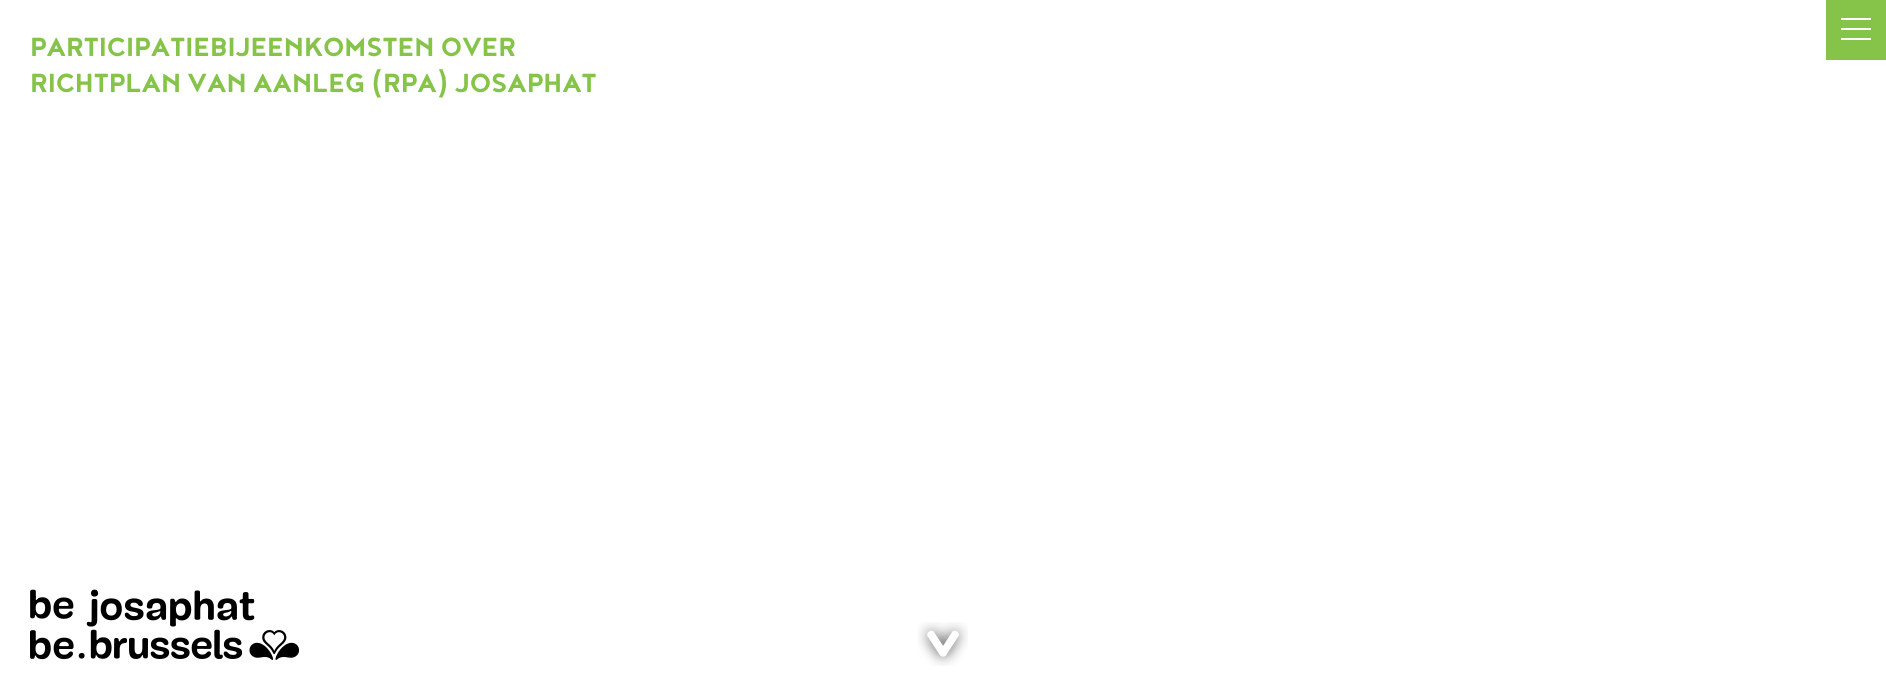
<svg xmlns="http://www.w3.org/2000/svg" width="1886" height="690">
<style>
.a{font:32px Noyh;fill:#85c449}
</style>
<rect width="100%" height="100%" fill="#fff"/>
<path fill="#85c449" d="M1826 0h60v60H1826z"/>
<path fill="#fff" d="M1841 28h30v2H1841z"/>
<path fill="#fff" d="M1841 18h30v2H1841z"/>
<path fill="#fff" d="M1841 38h30v2H1841z"/>
<image href="1.png" x="30" y="589" width="269" height="71"/>
<image href="2.png" x="918" y="622" width="50" height="44"/>
<text class="a" x="30" y="56">PARTICIPATIEBIJEENKOMSTEN OVER</text>
<text class="a" x="30" y="92">RICHTPLAN VAN AANLEG (RPA) JOSAPHAT</text>
</svg>
